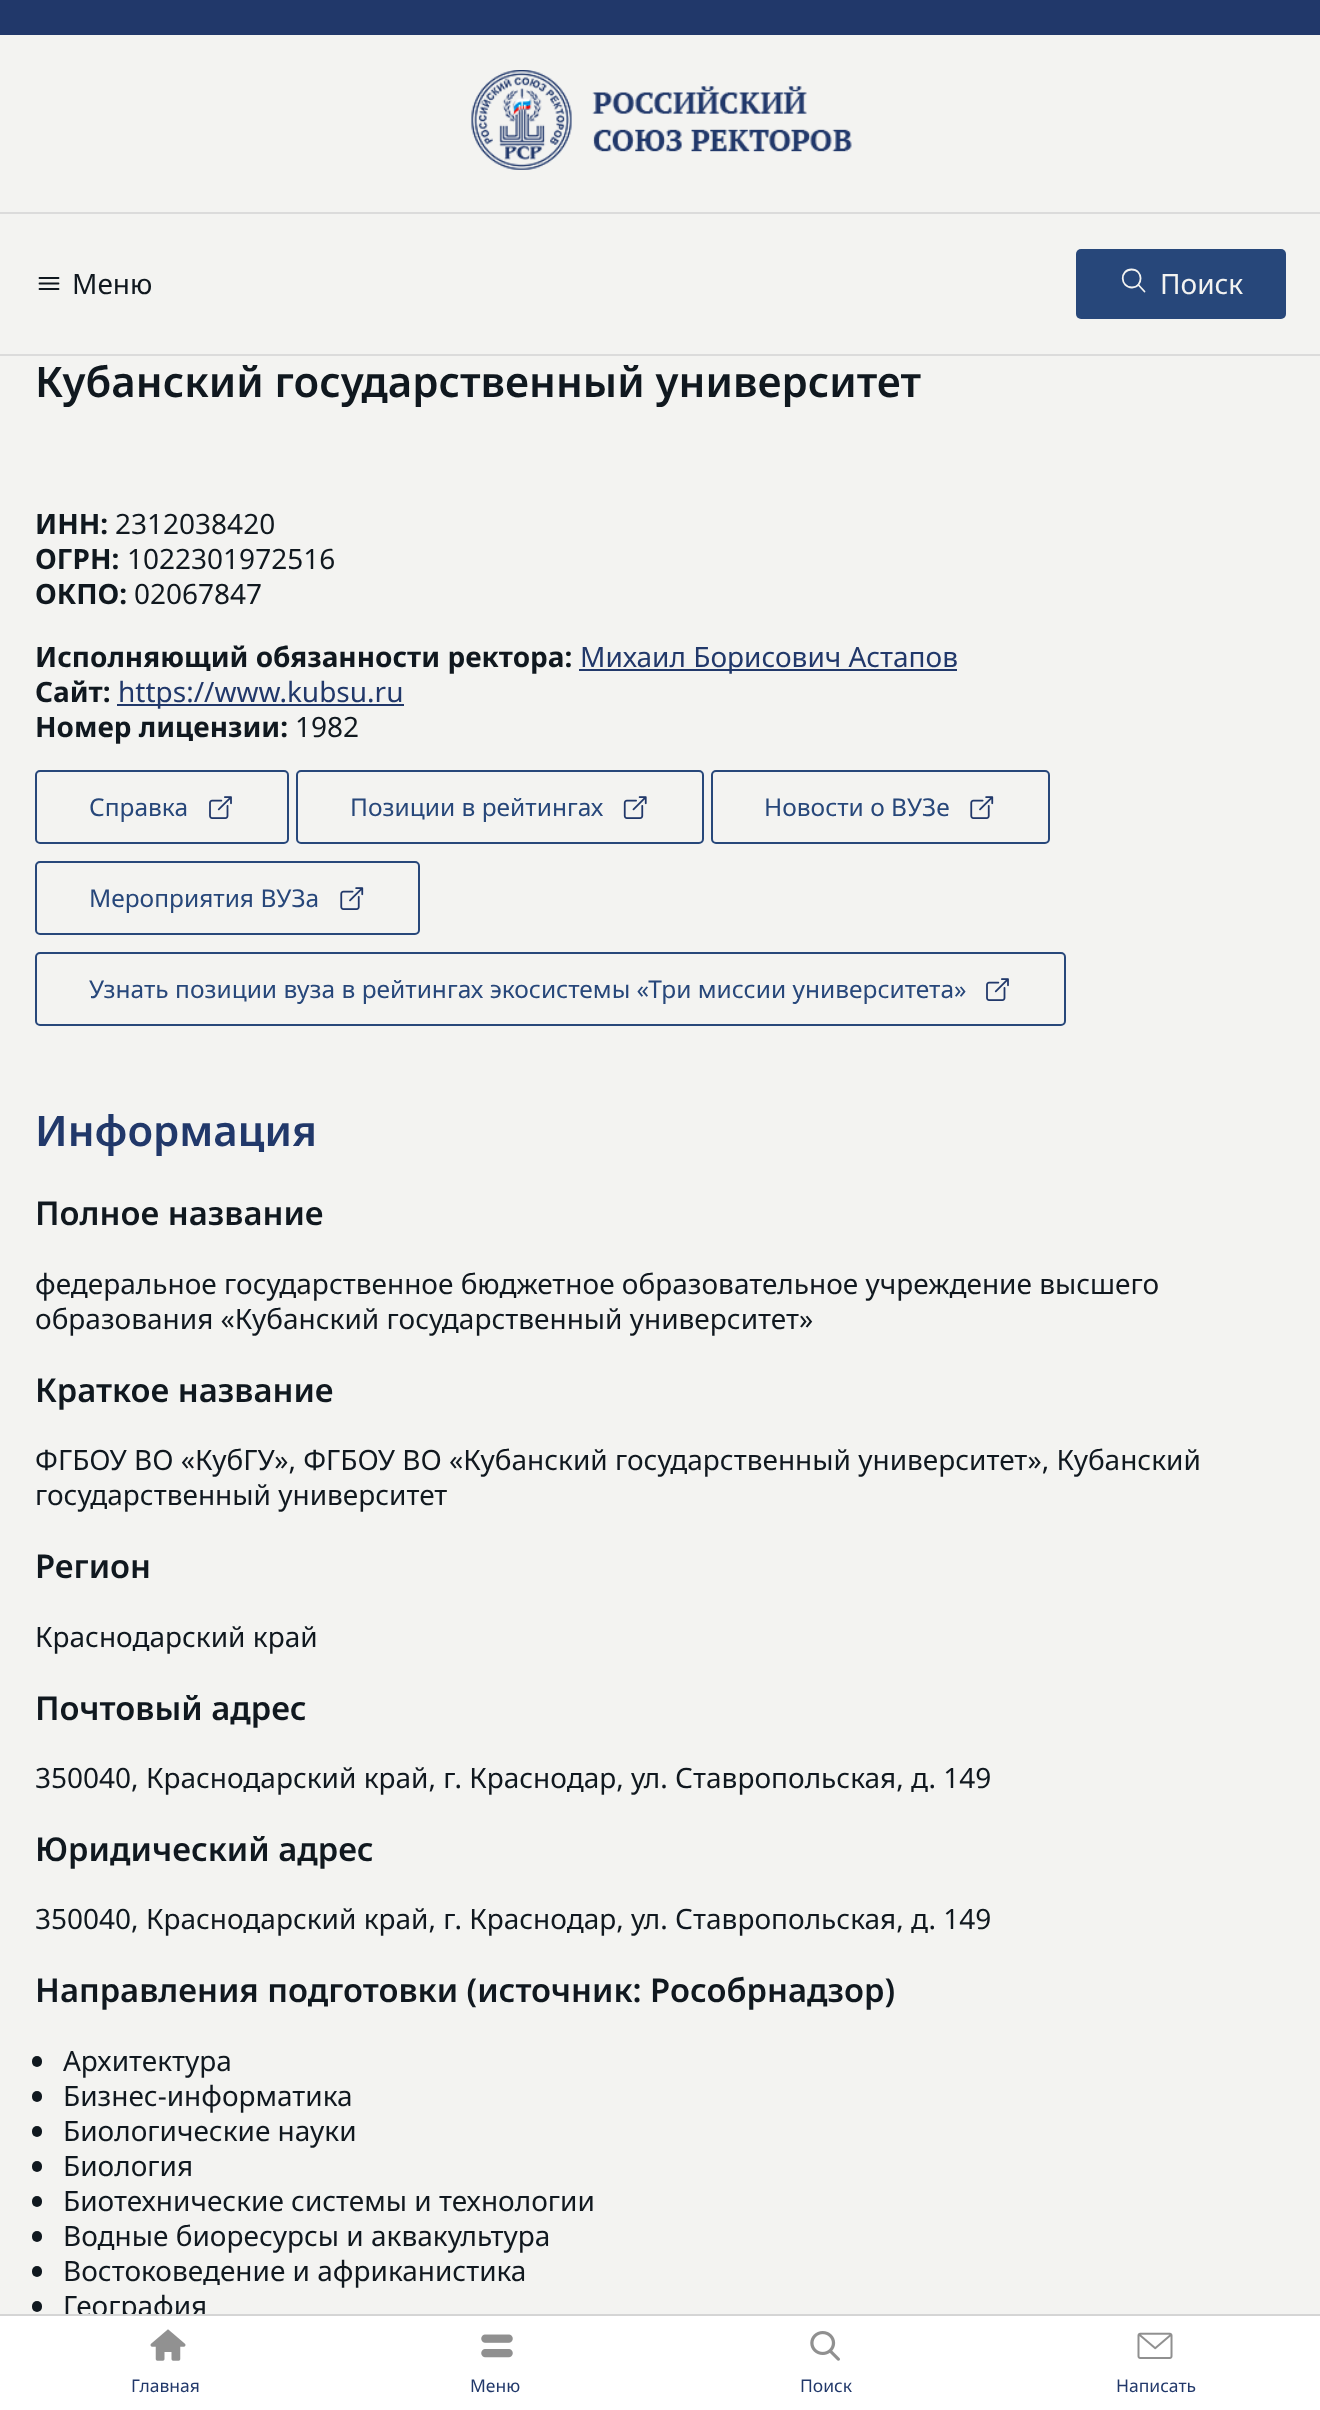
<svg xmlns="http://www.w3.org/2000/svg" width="1320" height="2410">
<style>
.a{font:28px Noto Sans;fill:#10181f}
.b{font:28px Noto Sans;fill:#f3f3f1}
.c{font:600 42px Noto Sans;fill:#10181f}
.d{font:bold 28px Noto Sans;fill:#10181f}
.e{font:28px Noto Sans;fill:#21386a}
.f{font:24.5px Noto Sans;fill:#27477a}
.g{font:600 42px Noto Sans;fill:#21386a}
.h{font:600 32.75px Noto Sans;fill:#10181f}
.i{font:17.5px Noto Sans;fill:#21386a}
</style>
<rect width="100%" height="100%" fill="#f3f3f1"/>
<path fill="#21386a" d="M0 0h1320v35H0z"/>
<image href="1.png" x="471" y="70" width="381" height="100"/>
<path fill="#dbdbdb" d="M0 212h1320v2H0z"/>
<path fill="#dbdbdb" d="M0 354h1320v2H0z"/>
<path fill="none" stroke="#10181f" stroke-width="1.8" stroke-linecap="round" d="M39.5 278h19m-19 5.5h19m-19 5.5h19"/>
<rect fill="#27477a" x="1076" y="249" width="210" height="70" rx="5"/>
<path fill="none" stroke="#f3f3f1" stroke-width="1.8" d="M1131.5 269.5c-12 0-11.5 18 .5 18c11.5-.5 11.5-18-.5-18z"/>
<path fill="none" stroke="#f3f3f1" stroke-width="1.8" stroke-linecap="round" d="M1138.5 285l6 6.5"/>
<path fill="#21386a" d="M579 669h378v2H579z"/>
<path fill="#21386a" d="M117 704h287v2H117z"/>
<rect fill="none" stroke="#27477a" stroke-width="2" x="36" y="771" width="252" height="72" rx="4"/>
<image href="2.png" x="209" y="796" width="23" height="23"/>
<rect fill="none" stroke="#27477a" stroke-width="2" x="297" y="771" width="406" height="72" rx="4"/>
<image href="3.png" x="623" y="796" width="24" height="23"/>
<rect fill="none" stroke="#27477a" stroke-width="2" x="712" y="771" width="337" height="72" rx="4"/>
<image href="4.png" x="970" y="796" width="24" height="23"/>
<rect fill="none" stroke="#27477a" stroke-width="2" x="36" y="862" width="383" height="72" rx="4"/>
<image href="4.png" x="340" y="887" width="24" height="23"/>
<rect fill="none" stroke="#27477a" stroke-width="2" x="36" y="953" width="1029" height="72" rx="4"/>
<image href="2.png" x="986" y="978" width="23" height="23"/>
<rect fill="#10181f" x="32" y="2056" width="10" height="11" rx="5"/>
<rect fill="#10181f" x="32" y="2091" width="10" height="11" rx="5"/>
<rect fill="#10181f" x="32" y="2126" width="10" height="11" rx="5"/>
<rect fill="#10181f" x="32" y="2161" width="10" height="11" rx="5"/>
<rect fill="#10181f" x="32" y="2196" width="10" height="11" rx="5"/>
<rect fill="#10181f" x="32" y="2231" width="10" height="11" rx="5"/>
<rect fill="#10181f" x="32" y="2266" width="10" height="11" rx="5"/>
<rect fill="#10181f" x="32" y="2301" width="10" height="11" rx="5"/>
<text class="a" x="72" y="294">Меню</text>
<text class="b" x="1160" y="294">Поиск</text>
<text class="c" x="35" y="397">Кубанский государственный университет</text>
<text class="d" x="35" y="534">ИНН:</text>
<text class="a" x="115" y="534">2312038420</text>
<text class="d" x="35" y="569">ОГРН:</text>
<text class="a" x="127" y="569">1022301972516</text>
<text class="d" x="35" y="604">ОКПО:</text>
<text class="a" x="134" y="604">02067847</text>
<text class="d" x="35" y="667">Исполняющий обязанности ректора:</text>
<text class="e" x="580" y="667">Михаил Борисович Астапов</text>
<text class="d" x="35" y="702">Сайт:</text>
<text class="e" x="118" y="702">https://www.kubsu.ru</text>
<text class="d" x="35" y="737">Номер лицензии:</text>
<text class="a" x="295" y="737">1982</text>
<text class="f" x="89" y="816">Справка</text>
<text class="f" x="350" y="816">Позиции в рейтингах</text>
<text class="f" x="764" y="816">Новости о ВУЗе</text>
<text class="f" x="89" y="907">Мероприятия ВУЗа</text>
<text class="f" x="89" y="998">Узнать позиции вуза в рейтингах экосистемы «Три миссии университета»</text>
<text class="g" x="35" y="1146">Информация</text>
<text class="h" x="35" y="1225">Полное название</text>
<text class="a" x="35" y="1294">федеральное государственное бюджетное образовательное учреждение высшего</text>
<text class="a" x="35" y="1329">образования «Кубанский государственный университет»</text>
<text class="h" x="35" y="1402">Краткое название</text>
<text class="a" x="35" y="1470">ФГБОУ ВО «КубГУ», ФГБОУ ВО «Кубанский государственный университет», Кубанский</text>
<text class="a" x="35" y="1505">государственный университет</text>
<text class="h" x="35" y="1578">Регион</text>
<text class="a" x="35" y="1647">Краснодарский край</text>
<text class="h" x="35" y="1720">Почтовый адрес</text>
<text class="a" x="35" y="1788">350040, Краснодарский край, г. Краснодар, ул. Ставропольская, д. 149</text>
<text class="h" x="35" y="1861">Юридический адрес</text>
<text class="a" x="35" y="1929">350040, Краснодарский край, г. Краснодар, ул. Ставропольская, д. 149</text>
<text class="h" x="35" y="2002">Направления подготовки (источник: Рособрнадзор)</text>
<text class="a" x="63" y="2071">Архитектура</text>
<text class="a" x="63" y="2106">Бизнес-информатика</text>
<text class="a" x="63" y="2141">Биологические науки</text>
<text class="a" x="63" y="2176">Биология</text>
<text class="a" x="63" y="2211">Биотехнические системы и технологии</text>
<text class="a" x="63" y="2246">Водные биоресурсы и аквакультура</text>
<text class="a" x="63" y="2281">Востоковедение и африканистика</text>
<text class="a" x="63" y="2316">География</text>
<path fill="#fff" d="M0 2316h1320v94H0z"/>
<path fill="#d5d5d5" d="M0 2314h1320v2H0z"/>
<image href="5.png" x="150" y="2329" width="36" height="32"/>
<text class="i" x="131" y="2392">Главная</text>
<image href="6.png" x="481" y="2334" width="32" height="24"/>
<text class="i" x="470" y="2392">Меню</text>
<image href="7.png" x="810" y="2331" width="30" height="30"/>
<text class="i" x="800" y="2392">Поиск</text>
<image href="8.png" x="1137" y="2332" width="36" height="27"/>
<text class="i" x="1116" y="2392">Написать</text>
</svg>
